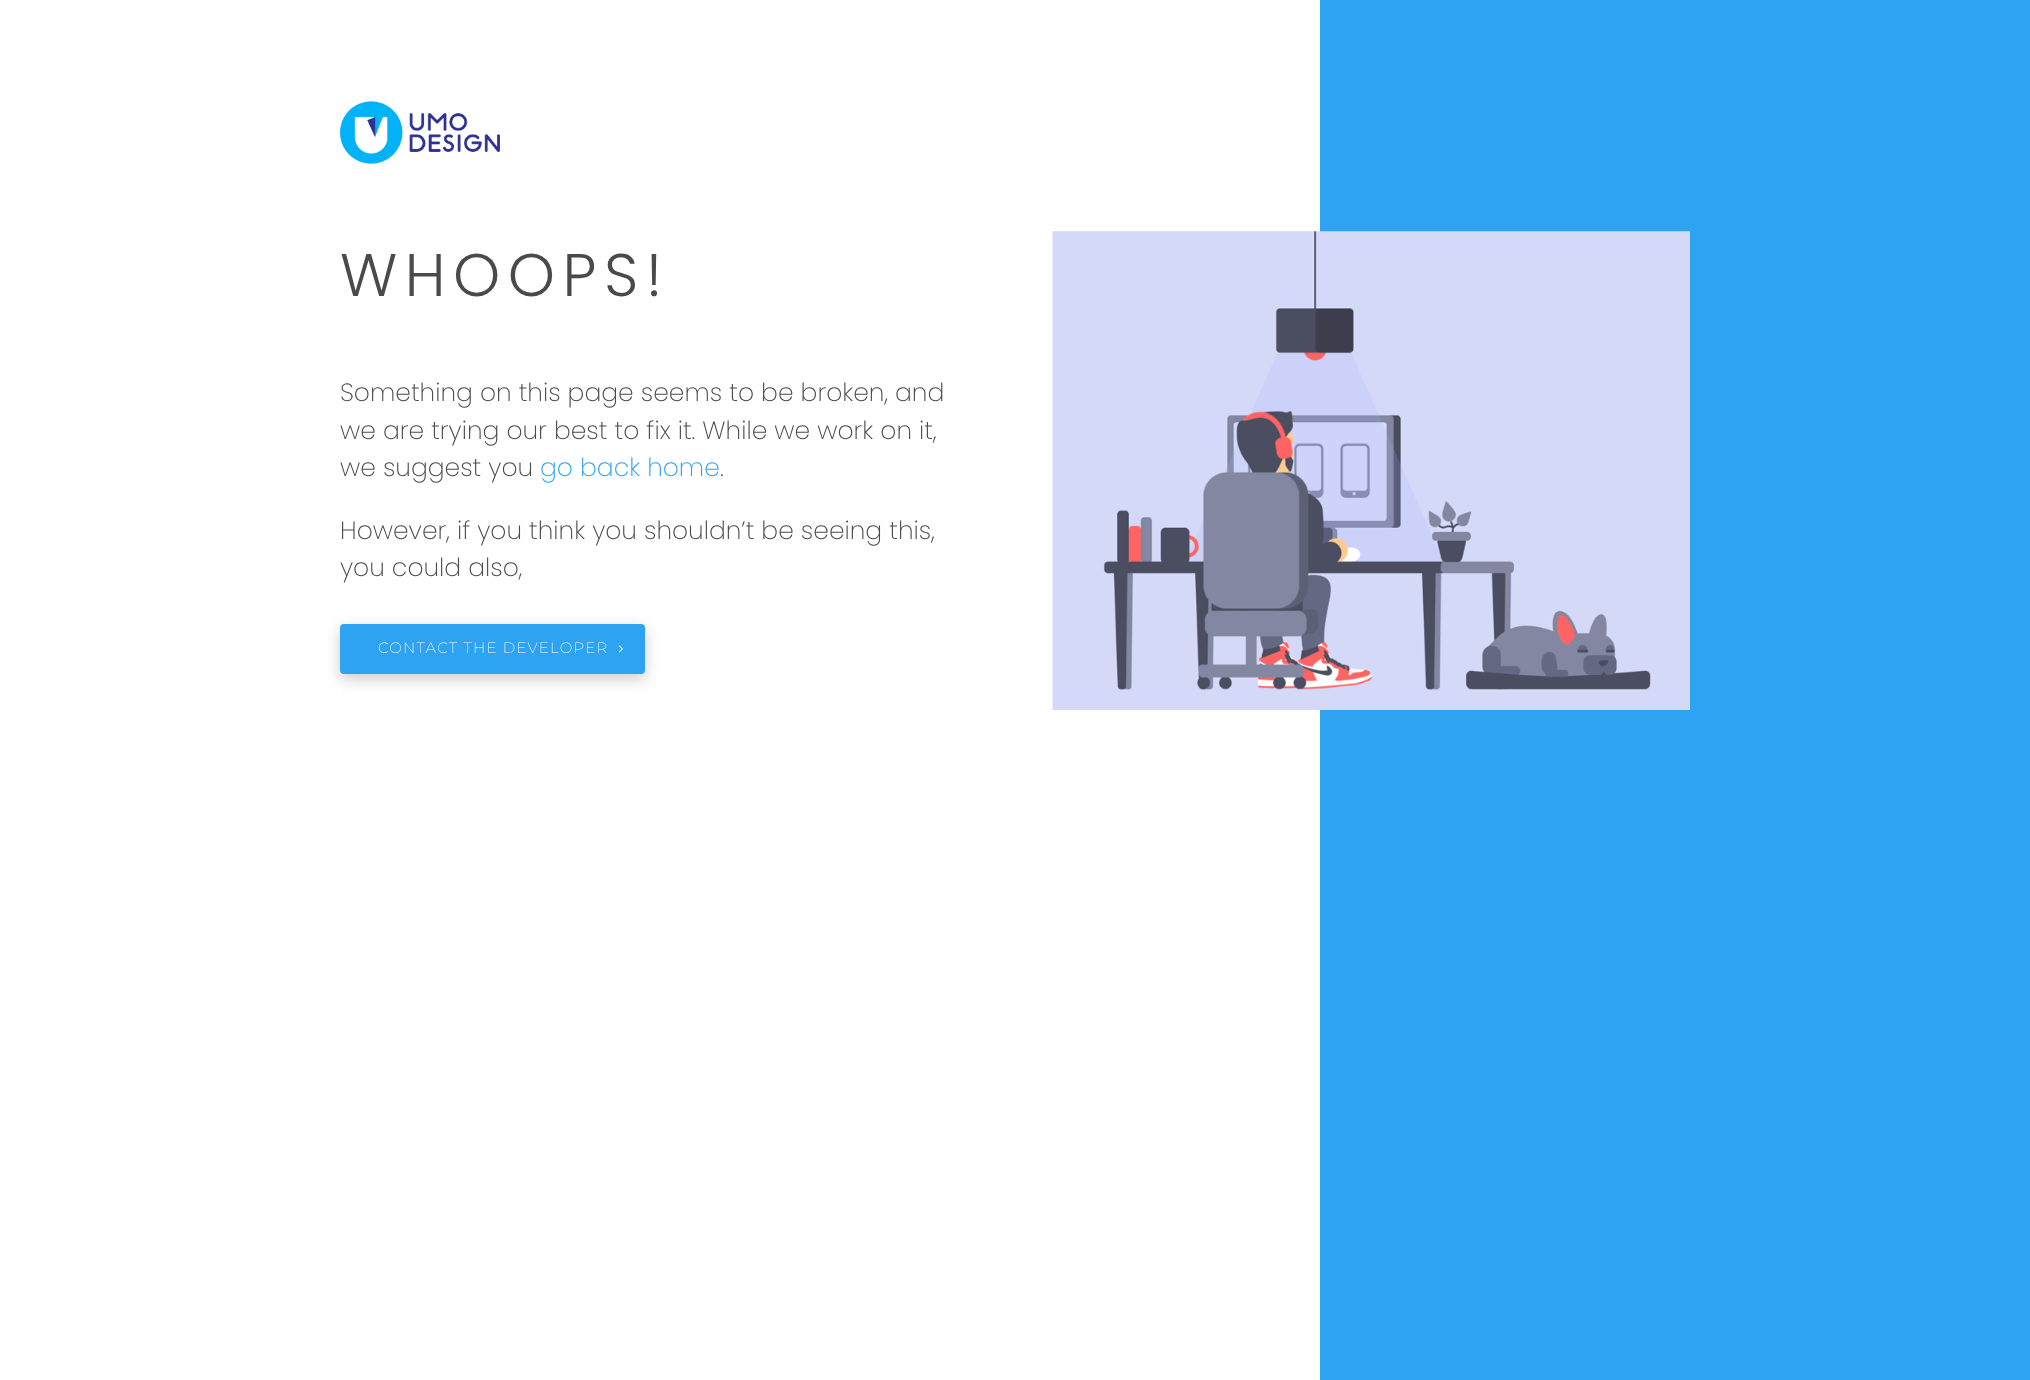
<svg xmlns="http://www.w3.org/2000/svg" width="2030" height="1380">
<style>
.a{font:300 60px Poppins;letter-spacing:7.5px;fill:#4a4a4a}
.b{font:200 25px Poppins;fill:#4a4a4a}
.c{font:200 25px Poppins;fill:#2ea3f2}
.d{font:200 15px Montserrat;letter-spacing:1.25px;fill:#fff}
</style>
<rect width="100%" height="100%" fill="#fff"/>
<path fill="#2ea3f2" d="M1320 0h710v1380H1320z"/>
<image href="1.png" x="340" y="101" width="160" height="63"/>
<rect fill="#00000033" filter="blur(7.5px)" x="340" y="629" width="305" height="50" rx="4"/>
<rect fill="#2ea3f2" x="340" y="624" width="305" height="50" rx="4"/>
<image href="2.png" x="618" y="645" width="5" height="8"/>
<image href="3.png" x="1052" y="231" width="638" height="479"/>
<text class="a" x="340" y="296">WHOOPS!</text>
<text class="b" x="340" y="401">Something on this page seems to be broken, and</text>
<text class="b" x="340" y="439">we are trying our best to fix it. While we work on it,</text>
<text class="b" x="340" y="476">we suggest you</text>
<text class="c" x="540" y="476">go back home</text>
<text class="b" x="720" y="476">.</text>
<text class="b" x="340" y="539">However, if you think you shouldn’t be seeing this,</text>
<text class="b" x="340" y="576">you could also,</text>
<text class="d" x="378" y="653">CONTACT THE DEVELOPER</text>
</svg>
